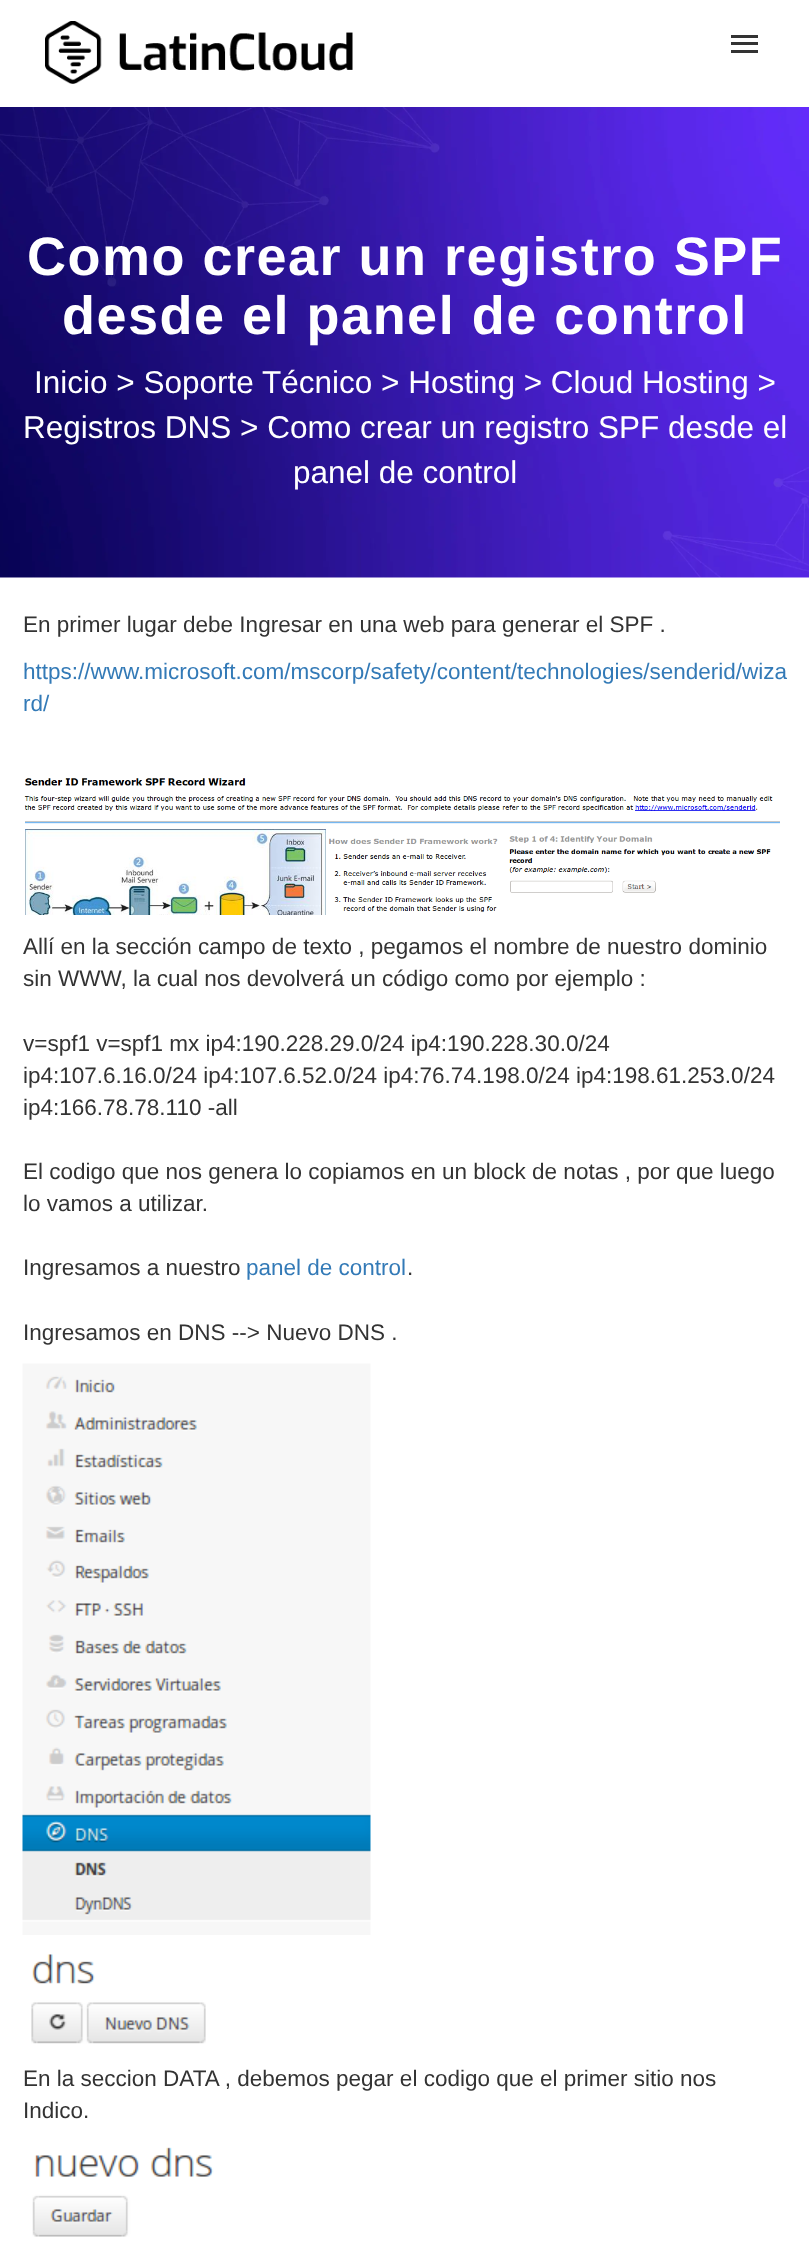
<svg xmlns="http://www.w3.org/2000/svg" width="809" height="2248">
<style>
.a{font:bold 54px Liberation Sans;letter-spacing:1.5px;fill:#fff}
.b{font:31.5px Liberation Sans;fill:#fff}
.c{font:22.5px Liberation Sans;fill:#333}
.d{font:22.5px Liberation Sans;fill:#337ab7}
</style>
<rect width="100%" height="100%" fill="#fff"/>
<image href="1.png" x="45" y="21" width="308" height="63"/>
<path fill="#333" d="M731 42h27v3H731z"/>
<path fill="#333" d="M731 35h27v3H731z"/>
<path fill="#333" d="M731 50h27v3H731z"/>
<image href="2.png" x="0" y="107" width="809" height="471"/>
<image href="3.png" x="24" y="778" width="756" height="137"/>
<image href="4.png" x="22" y="1363" width="349" height="572"/>
<image href="5.png" x="31" y="1954" width="175" height="90"/>
<image href="6.png" x="32" y="2147" width="182" height="90"/>
<text class="a" x="27" y="275">Como crear un registro SPF</text>
<text class="a" x="62" y="334">desde el panel de control</text>
<text class="b" x="34" y="393">Inicio &gt; Soporte Técnico &gt; Hosting &gt; Cloud Hosting &gt;</text>
<text class="b" x="23" y="438">Registros DNS &gt; Como crear un registro SPF desde el</text>
<text class="b" x="293" y="483">panel de control</text>
<text class="c" x="23" y="632">En primer lugar debe Ingresar en una web para generar el SPF .</text>
<text class="d" x="23" y="679">https://www.microsoft.com/mscorp/safety/content/technologies/senderid/wiza</text>
<text class="d" x="23" y="711">rd/</text>
<text class="c" x="23" y="954">Allí en la sección campo de texto , pegamos el nombre de nuestro dominio</text>
<text class="c" x="23" y="986">sin WWW, la cual nos devolverá un código como por ejemplo :</text>
<text class="c" x="23" y="1051">v=spf1 v=spf1 mx ip4:190.228.29.0/24 ip4:190.228.30.0/24</text>
<text class="c" x="23" y="1083">ip4:107.6.16.0/24 ip4:107.6.52.0/24 ip4:76.74.198.0/24 ip4:198.61.253.0/24</text>
<text class="c" x="23" y="1115">ip4:166.78.78.110 -all</text>
<text class="c" x="23" y="1179">El codigo que nos genera lo copiamos en un block de notas , por que luego</text>
<text class="c" x="23" y="1211">lo vamos a utilizar.</text>
<text class="c" x="23" y="1275">Ingresamos a nuestro</text>
<text class="d" x="246" y="1275">panel de control</text>
<text class="c" x="407" y="1275">.</text>
<text class="c" x="23" y="1340">Ingresamos en DNS --&gt; Nuevo DNS .</text>
<text class="c" x="23" y="2086">En la seccion DATA , debemos pegar el codigo que el primer sitio nos</text>
<text class="c" x="23" y="2118">Indico.</text>
</svg>
